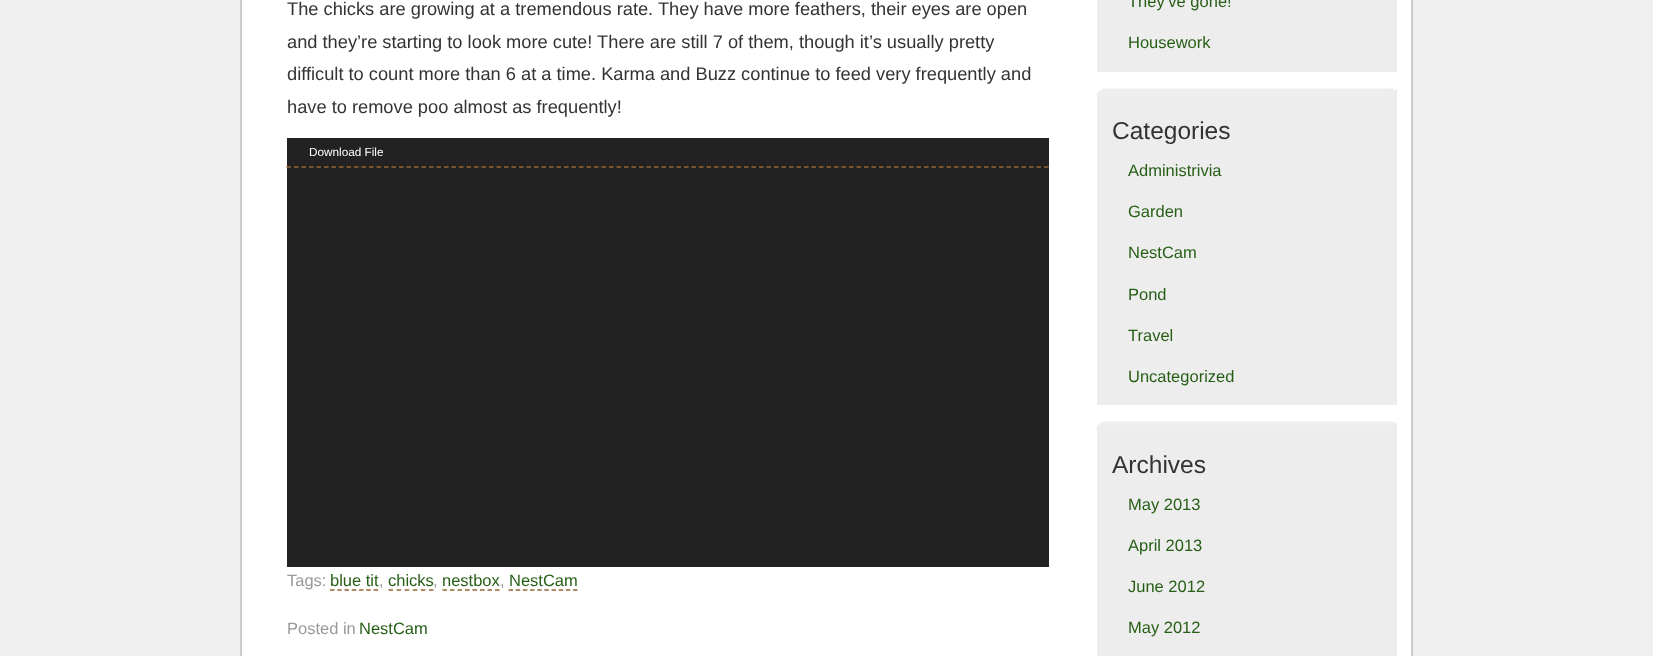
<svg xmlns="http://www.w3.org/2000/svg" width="1653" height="656">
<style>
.a{font:18.25px Liberation Sans;fill:#333}
.b{font:11.75px Liberation Sans;fill:#fff}
.c{font:16.5px Liberation Sans;fill:#999}
.d{font:16.5px Liberation Sans;fill:#265e15}
.e{font:24.5px Liberation Sans;fill:#333}
</style>
<rect width="100%" height="100%" fill="#f0f0f0"/>
<path fill="#fff" stroke="#ccc" stroke-width="2" d="M241 -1h1171v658H241z"/>
<path fill="#222" d="M287 138h762v429H287z"/>
<path fill="none" stroke="#963" stroke-width="1.5" stroke-dasharray="4.5 3" d="M286.5 167h762"/>
<path fill="none" stroke="#963" stroke-width="1.5" stroke-dasharray="4.5 2.75" d="M330 590h48"/>
<path fill="none" stroke="#963" stroke-width="1.5" stroke-dasharray="4.5 3.6" d="M388.5 590h45"/>
<path fill="none" stroke="#963" stroke-width="1.5" stroke-dasharray="4.5 3" d="M442.5 590h57"/>
<path fill="none" stroke="#963" stroke-width="1.5" stroke-dasharray="4.5 2.67" d="M508.5 590h69"/>
<path fill="#ededed" d="M1097 0h300v72H1097z"/>
<path fill="#ededed" d="M1097 89h300v316H1097z"/>
<image href="1.png" x="1096" y="88" width="300" height="8"/>
<path fill="#ededed" d="M1097 422h300v234H1097z"/>
<image href="1.png" x="1096" y="421" width="300" height="8"/>
<text class="a" x="287" y="15">The chicks are growing at a tremendous rate. They have more feathers, their eyes are open</text>
<text class="a" x="287" y="48">and they’re starting to look more cute! There are still 7 of them, though it’s usually pretty</text>
<text class="a" x="287" y="80">difficult to count more than 6 at a time. Karma and Buzz continue to feed very frequently and</text>
<text class="a" x="287" y="113">have to remove poo almost as frequently!</text>
<text class="b" x="309" y="156">Download File</text>
<text class="c" x="287" y="586">Tags:</text>
<text class="d" x="330" y="586">blue tit</text>
<text class="c" x="379" y="586">,</text>
<text class="d" x="388" y="586">chicks</text>
<text class="c" x="433" y="586">,</text>
<text class="d" x="442" y="586">nestbox</text>
<text class="c" x="500" y="586">,</text>
<text class="d" x="509" y="586">NestCam</text>
<text class="c" x="287" y="634">Posted in</text>
<text class="d" x="359" y="634">NestCam</text>
<text class="d" x="1128" y="7">They’ve gone!</text>
<text class="d" x="1128" y="48">Housework</text>
<text class="e" x="1112" y="139">Categories</text>
<text class="d" x="1128" y="176">Administrivia</text>
<text class="d" x="1128" y="217">Garden</text>
<text class="d" x="1128" y="258">NestCam</text>
<text class="d" x="1128" y="300">Pond</text>
<text class="d" x="1128" y="341">Travel</text>
<text class="d" x="1128" y="382">Uncategorized</text>
<text class="e" x="1112" y="473">Archives</text>
<text class="d" x="1128" y="510">May 2013</text>
<text class="d" x="1128" y="551">April 2013</text>
<text class="d" x="1128" y="592">June 2012</text>
<text class="d" x="1128" y="633">May 2012</text>
</svg>
